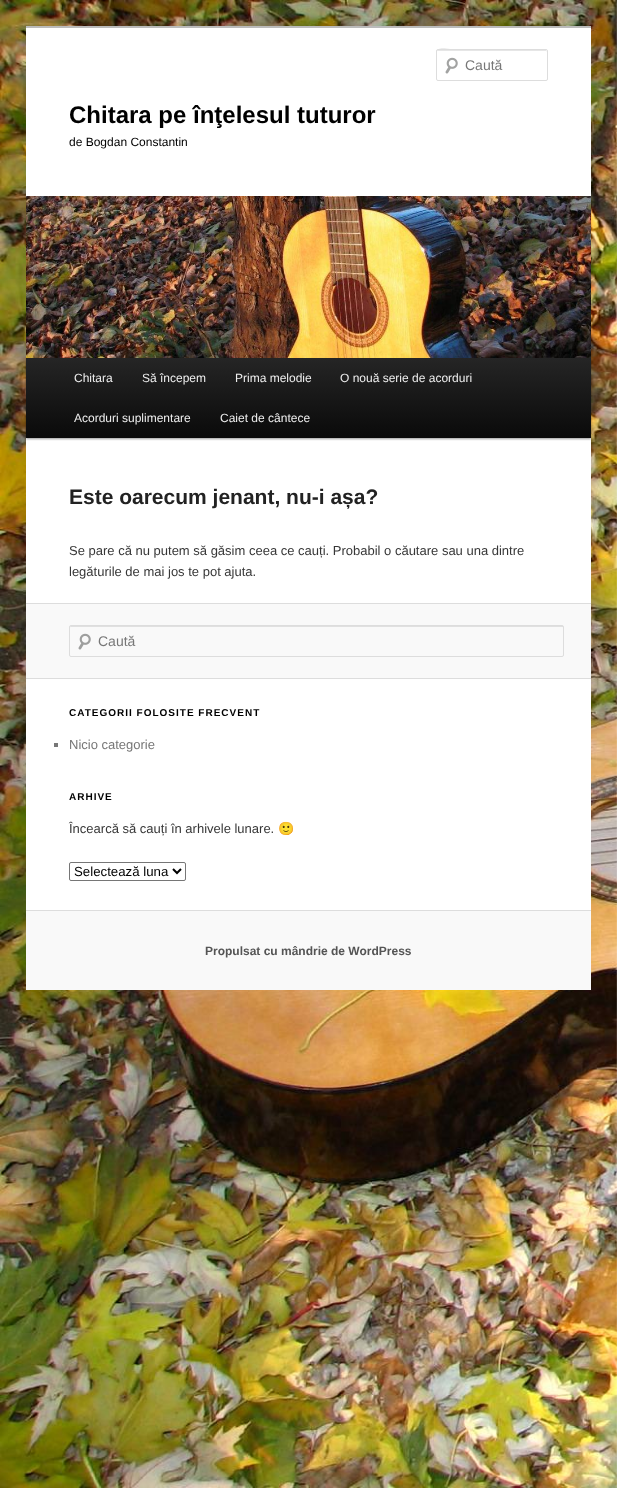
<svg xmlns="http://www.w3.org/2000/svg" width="617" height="1488">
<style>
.a{font:14px Liberation Sans;fill:#777}
.b{font:bold 24px Liberation Sans;fill:#000}
.c{font:12px Liberation Sans;fill:#000}
.d{font:12px Liberation Sans;fill:#eee}
.e{font:bold 21px Liberation Sans;fill:#222}
.f{font:13px Liberation Sans;fill:#373737}
.g{font:bold 10px Liberation Sans;letter-spacing:1px;fill:#000}
.h{font:13px Liberation Sans;fill:#777}
.i{font:13px Noto Color Emoji;fill:#373737}
.j{font:13.25px Liberation Sans;fill:#000}
.k{font:bold 12px Liberation Sans;fill:#555}
</style>
<defs>
<linearGradient id="g1" gradientUnits="userSpaceOnUse" x1="309" y1="358" x2="309" y2="438"><stop offset="0" stop-color="#252525"/><stop offset="1" stop-color="#0a0a0a"/></linearGradient>
</defs>
<rect width="100%" height="100%" fill="#fff"/>
<image href="1.png" x="0" y="0" width="617" height="1488"/>
<path fill="#fff" d="M26 28h565v882H26z"/>
<path fill="#bbb" d="M26 26h565v2H26z"/>
<image href="2.png" x="445" y="57" width="13" height="17"/>
<path fill="#e6e6e6" d="M438 51h109v1l-1-2h-90c-4 0-19-5-19 2c0-1 0-1 1-1z"/>
<rect fill="none" stroke="#ddd" x="436.5" y="49.5" width="111" height="31" rx="1.5"/>
<path fill="#00000066" filter="blur(1px)" d="M26 359h565v80H26z"/>
<image href="3.png" x="26" y="196" width="565" height="162"/>
<path fill="url(#g1)" d="M26 358h565v80H26z"/>
<path fill="#f9f9f9" d="M26 604h565v74H26z"/>
<path fill="#ddd" d="M26 603h565v1H26z"/>
<path fill="#ddd" d="M26 678h565v1H26z"/>
<image href="4.png" x="78" y="633" width="13" height="17"/>
<path fill="#e0e0e0" d="M71 627h491c1 0 1 0 1 1v-2h-492c-1 0-1 1-1 2c0-1 0-1 1-1z"/>
<rect fill="none" stroke="#ddd" x="69.5" y="625.5" width="494" height="31" rx="1.5"/>
<path fill="#777" d="M54 743h4v4H54z"/>
<rect fill="none" stroke="#767676" x="69.5" y="862.5" width="116" height="18" rx="1.5"/>
<path fill="none" stroke="#000" stroke-width="2" d="M173 869l4 4l4-4"/>
<path fill="#f9f9f9" d="M26 911h565v79H26z"/>
<path fill="#ddd" d="M26 910h565v1H26z"/>
<text class="a" x="465" y="70">Caută</text>
<text class="b" x="69" y="123">Chitara pe înţelesul tuturor</text>
<text class="c" x="69" y="146">de Bogdan Constantin</text>
<text class="d" x="74" y="382">Chitara</text>
<text class="d" x="142" y="382">Să începem</text>
<text class="d" x="235" y="382">Prima melodie</text>
<text class="d" x="340" y="382">O nouă serie de acorduri</text>
<text class="d" x="74" y="422">Acorduri suplimentare</text>
<text class="d" x="220" y="422">Caiet de cântece</text>
<text class="e" x="69" y="504">Este oarecum jenant, nu-i așa?</text>
<text class="f" x="69" y="555">Se pare că nu putem să găsim ceea ce cauți. Probabil o căutare sau una dintre</text>
<text class="f" x="69" y="576">legăturile de mai jos te pot ajuta.</text>
<text class="a" x="98" y="646">Caută</text>
<text class="g" x="69" y="716">CATEGORII FOLOSITE FRECVENT</text>
<text class="h" x="69" y="749">Nicio categorie</text>
<text class="g" x="69" y="800">ARHIVE</text>
<text class="f" x="69" y="833">Încearcă să cauți în arhivele lunare.</text>
<text class="i" x="278" y="833">🙂</text>
<text class="j" x="74" y="876">Selectează luna</text>
<text class="k" x="205" y="955">Propulsat cu mândrie de WordPress</text>
</svg>
